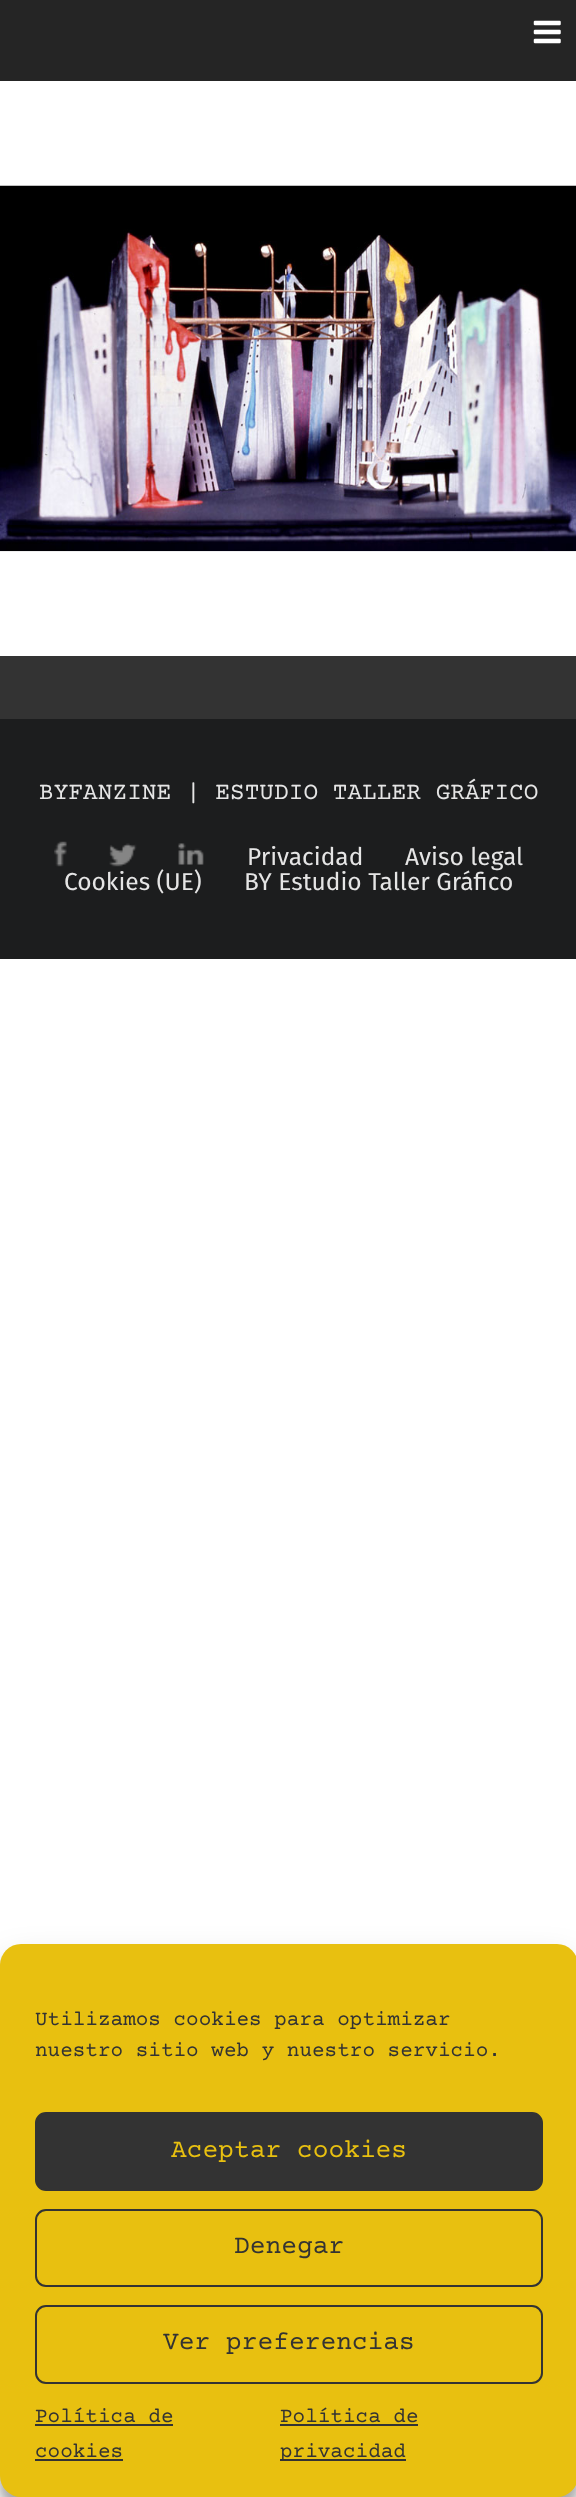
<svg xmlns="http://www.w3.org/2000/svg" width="576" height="2497">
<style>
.a{font:24.5px Courier Prime;fill:#e5e5e5}
.b{font:24.5px Fira Sans;fill:#e5e5e5}
.c{font:21px Courier Prime;fill:#333}
.d{font:26.25px Courier Prime;fill:#e8c010}
.e{font:26.25px Courier Prime;fill:#333}
</style>
<rect width="100%" height="100%" fill="#fff"/>
<path fill="#252525" d="M0 0h576v81H0z"/>
<image href="1.png" x="533" y="20" width="28" height="24"/>
<image href="2.png" x="0" y="185" width="576" height="367"/>
<path fill="#1c1d1e" d="M0 719h576v240H0z"/>
<path fill="#333" d="M0 656h576v63H0z"/>
<image href="3.png" x="54" y="841" width="13" height="26"/>
<image href="4.png" x="109" y="843" width="28" height="24"/>
<image href="5.png" x="178" y="843" width="26" height="22"/>
<rect fill="#0000003b" filter="blur(5px)" y="1955" width="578" height="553" rx="21"/>
<rect fill="#00000030" filter="blur(17.5px)" y="1962" width="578" height="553" rx="21"/>
<rect fill="#e8c010" y="1944" width="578" height="553" rx="21"/>
<rect fill="#333" stroke="#333" stroke-width="2" x="36" y="2113" width="506" height="77" rx="10"/>
<rect fill="none" stroke="#333" stroke-width="2" x="36" y="2210" width="506" height="76" rx="10"/>
<rect fill="none" stroke="#333" stroke-width="2" x="36" y="2306" width="506" height="77" rx="10"/>
<path fill="#333" d="M35 2424h138v2H35z"/>
<path fill="#333" d="M35 2459h88v2H35z"/>
<path fill="#333" d="M280 2424h138v2H280z"/>
<path fill="#333" d="M280 2459h126v2H280z"/>
<text class="a" x="39" y="799">BYFANZINE | ESTUDIO TALLER GRÁFICO</text>
<text class="b" x="247" y="865">Privacidad</text>
<text class="b" x="405" y="865">Aviso legal</text>
<text class="b" x="64" y="890">Cookies (UE)</text>
<text class="b" x="244" y="890">BY Estudio Taller Gráfico</text>
<text class="c" x="35" y="2025">Utilizamos cookies para optimizar</text>
<text class="c" x="35" y="2056">nuestro sitio web y nuestro servicio.</text>
<text class="d" x="171" y="2157">Aceptar cookies</text>
<text class="e" x="234" y="2253">Denegar</text>
<text class="e" x="163" y="2349">Ver preferencias</text>
<text class="c" x="35" y="2422">Política de</text>
<text class="c" x="35" y="2457">cookies</text>
<text class="c" x="280" y="2422">Política de</text>
<text class="c" x="280" y="2457">privacidad</text>
</svg>
